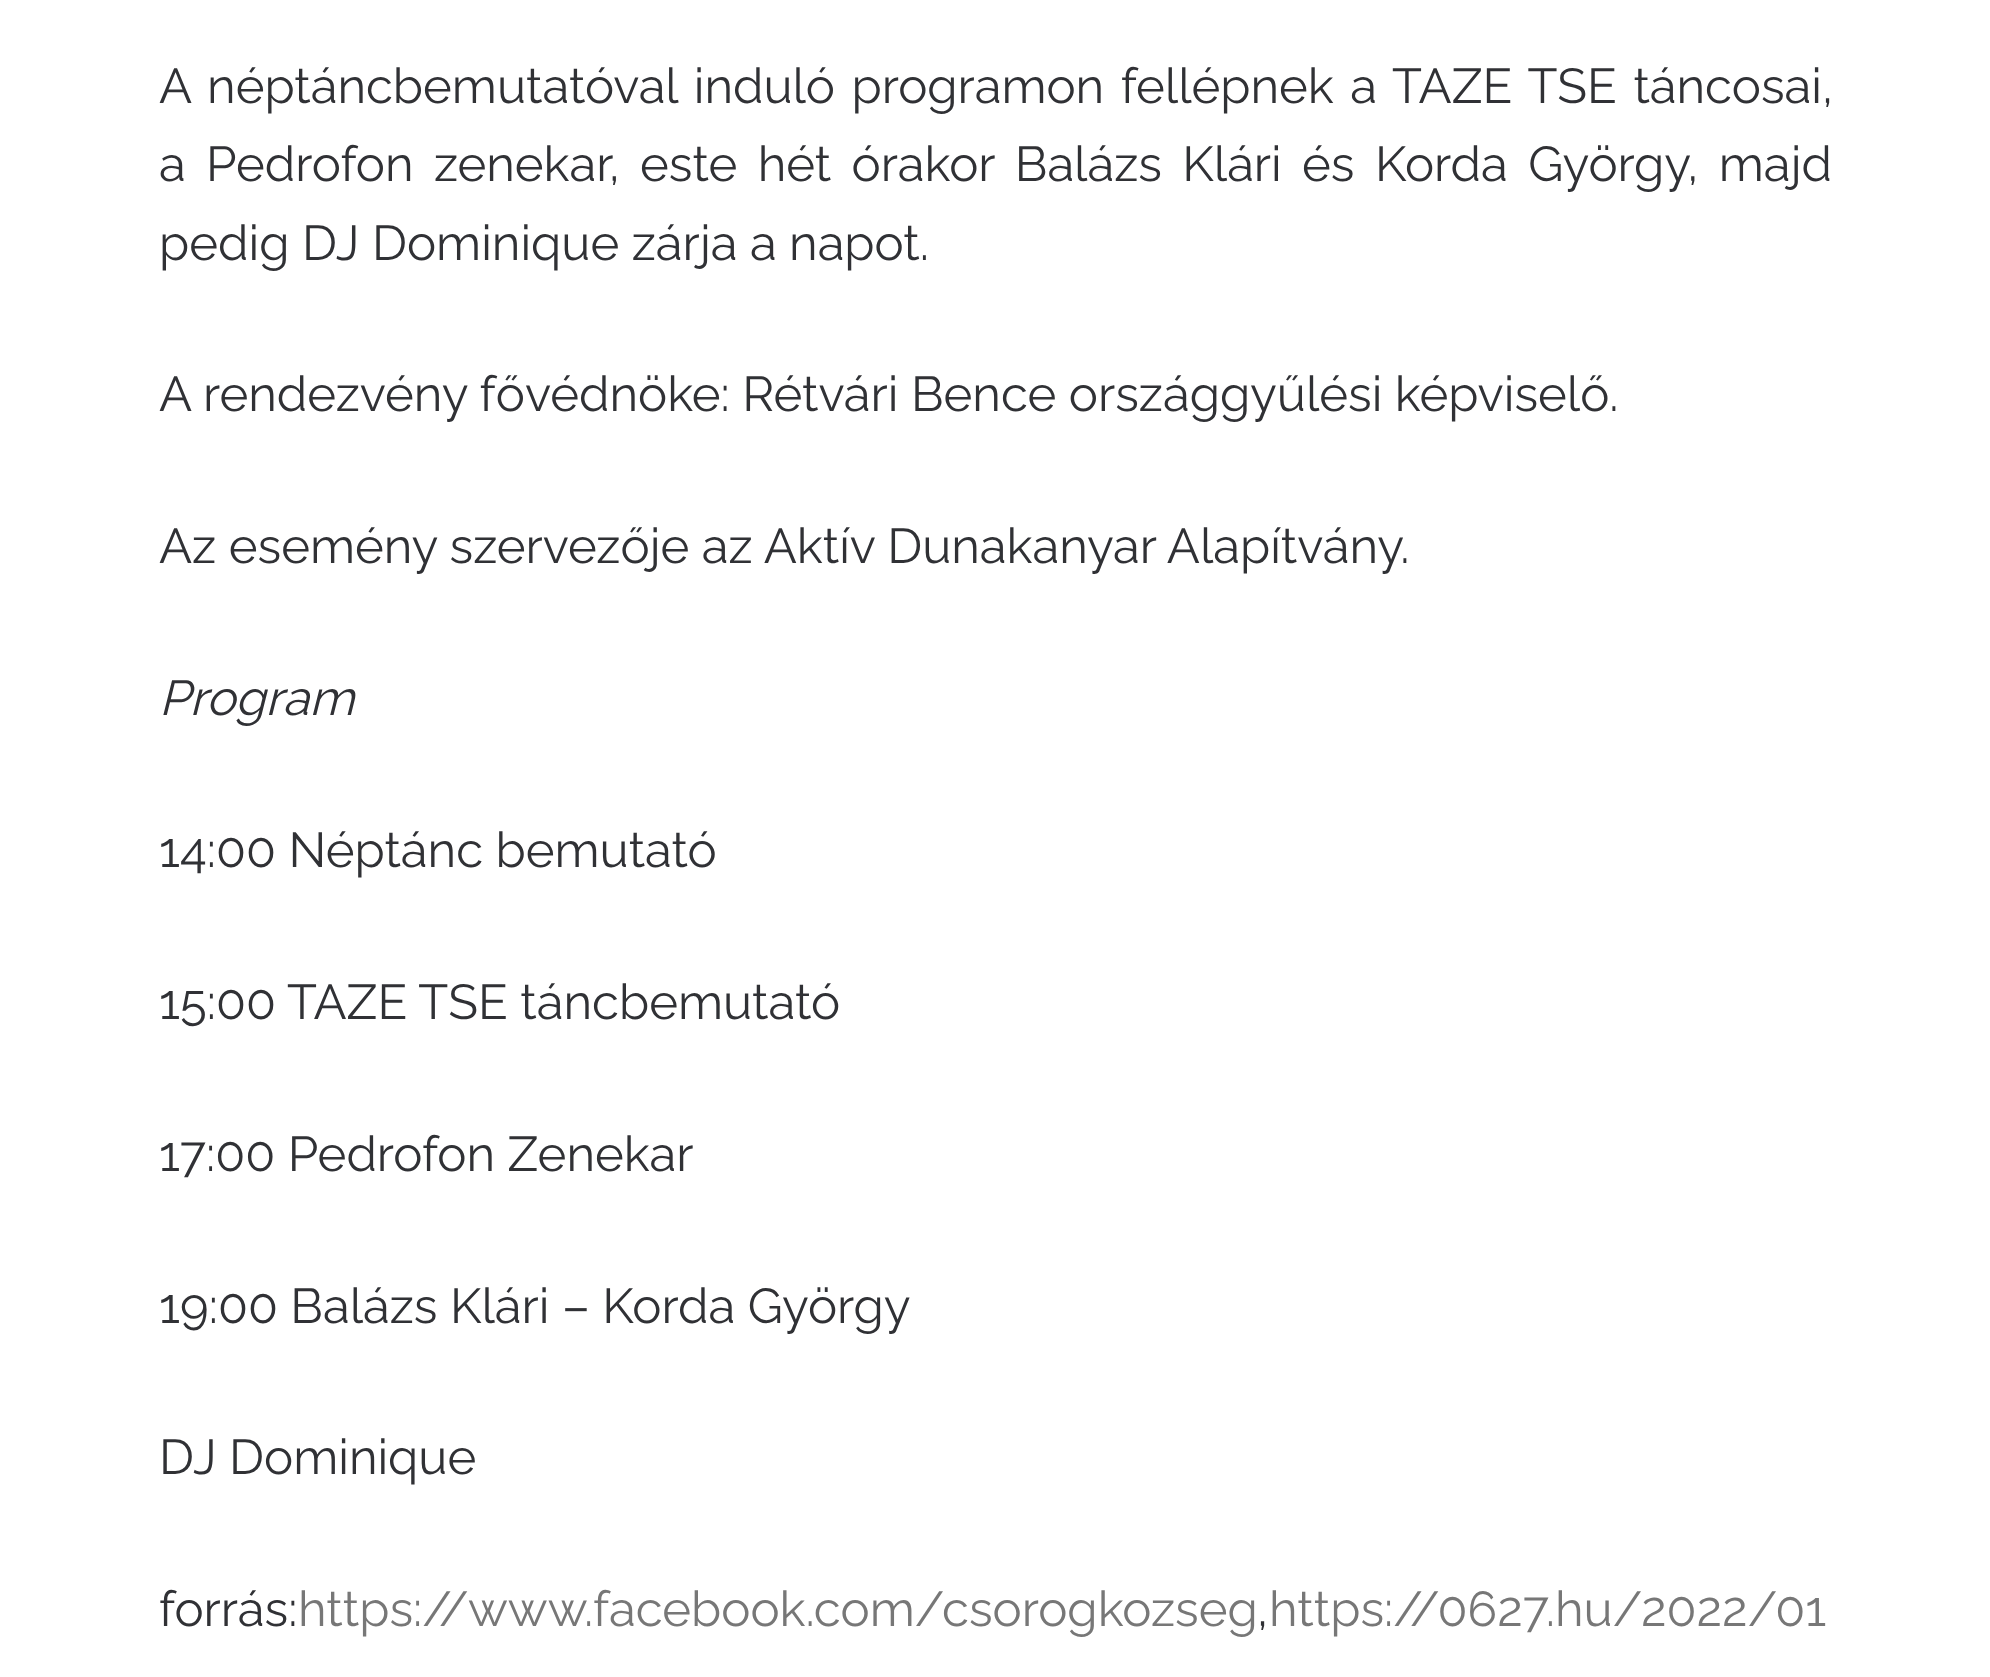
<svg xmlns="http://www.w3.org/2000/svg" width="1990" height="1677">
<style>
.a{font:49px Raleway;fill:#303135}
.b{font:italic 49px Raleway;fill:#303135}
.c{font:49px Raleway;fill:#777}
</style>
<rect width="100%" height="100%" fill="#fff"/>
<text class="a" x="159" y="103" word-spacing="4">A néptáncbemutatóval induló programon fellépnek a TAZE TSE táncosai,</text>
<text class="a" x="159" y="181" word-spacing="7.9">a Pedrofon zenekar, este hét órakor Balázs Klári és Korda György, majd</text>
<text class="a" x="159" y="260">pedig DJ Dominique zárja a napot.</text>
<text class="a" x="159" y="411">A rendezvény fővédnöke: Rétvári Bence országgyűlési képviselő.</text>
<text class="a" x="159" y="563">Az esemény szervezője az Aktív Dunakanyar Alapítvány.</text>
<text class="b" x="159" y="715">Program</text>
<text class="a" x="159" y="867">14:00 Néptánc bemutató</text>
<text class="a" x="159" y="1019">15:00 TAZE TSE táncbemutató</text>
<text class="a" x="159" y="1171">17:00 Pedrofon Zenekar</text>
<text class="a" x="159" y="1323">19:00 Balázs Klári – Korda György</text>
<text class="a" x="159" y="1474">DJ Dominique</text>
<text class="a" x="159" y="1626">forrás:</text>
<text class="c" x="298" y="1626">https://www.facebook.com/csorogkozseg</text>
<text class="a" x="1257" y="1626">,</text>
<text class="c" x="1269" y="1626">https://0627.hu/2022/01</text>
</svg>
